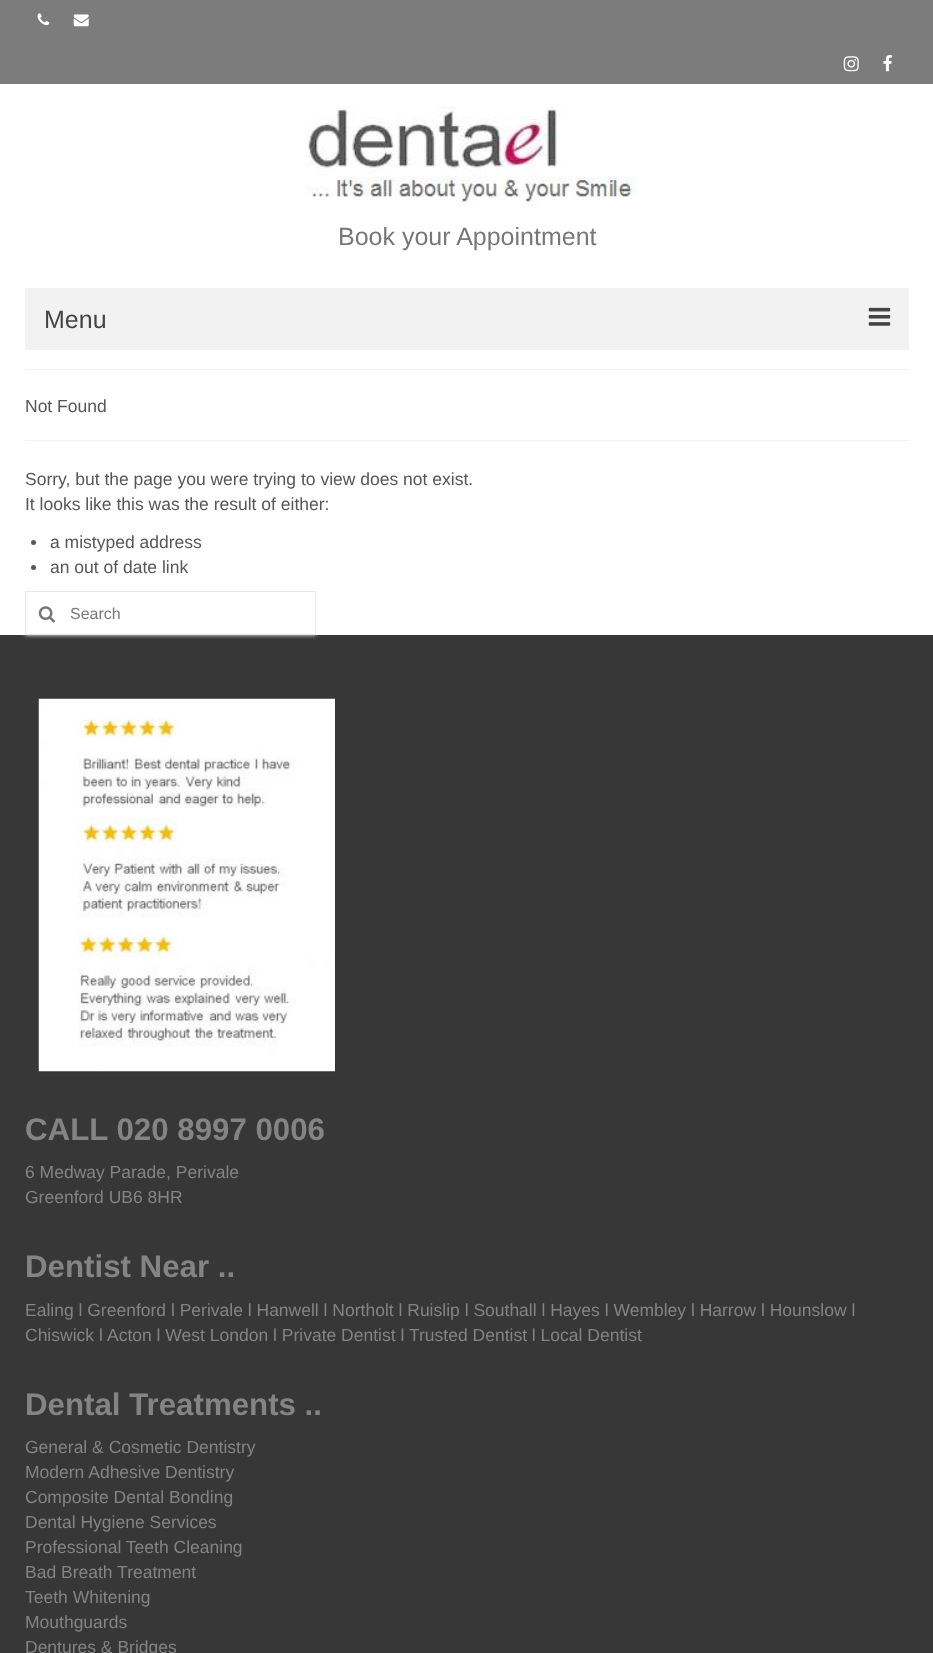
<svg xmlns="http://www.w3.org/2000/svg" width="933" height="1653">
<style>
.a{font:25px Liberation Sans;fill:#777}
.b{font:25px Liberation Sans;fill:#444}
.c{font:17.5px Liberation Sans;fill:#565656}
.d{font:16px Liberation Sans;fill:#777}
.e{font:bold 31.25px Liberation Sans;fill:#848484}
.f{font:17.5px Liberation Sans;fill:#848484}
</style>
<defs>
<clipPath id="clip1"><path d="M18 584h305v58h-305zm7 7h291v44h-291z" clip-rule="evenodd"/></clipPath>
</defs>
<rect width="100%" height="100%" fill="#fff"/>
<path fill="#7c7c7c" d="M0 0h933v84H0z"/>
<image href="1.png" x="37" y="13" width="13" height="13"/>
<image href="2.png" x="73" y="14" width="16" height="13"/>
<image href="3.png" x="843" y="56" width="16" height="16"/>
<image href="4.png" x="883" y="55" width="9" height="17"/>
<image href="5.png" x="306" y="106" width="331" height="100"/>
<path fill="#f2f2f2" d="M25 288h884v62H25z"/>
<image href="6.png" x="868" y="307" width="23" height="19"/>
<path fill="#f2f2f2" d="M25 369h884v1H25z"/>
<path fill="#f2f2f2" d="M25 440h884v1H25z"/>
<circle fill="#565656" cx="33.5" cy="542.5" r="2.5"/>
<circle fill="#565656" cx="33.5" cy="567.5" r="2.5"/>
<path fill="#373737" d="M0 635h933v1018H0z"/>
<g clip-path="url(#clip1)">
<path fill="#fff" filter="blur(2px)" d="M25 591h291v44H25z"/>
</g>
<path fill="none" stroke="#e7e7e7" d="M25.5 591.5h290v43H25.5z"/>
<image href="7.png" x="38" y="606" width="17" height="17"/>
<path fill="none" stroke="#343434" d="M38.5 698.5h297v374H38.5z"/>
<image href="8.png" x="38" y="698" width="297" height="374"/>
<text class="a" x="338" y="245">Book your Appointment</text>
<text class="b" x="44" y="328">Menu</text>
<text class="c" x="25" y="412">Not Found</text>
<text class="c" x="25" y="485">Sorry, but the page you were trying to view does not exist.</text>
<text class="c" x="25" y="510">It looks like this was the result of either:</text>
<text class="c" x="50" y="548">a mistyped address</text>
<text class="c" x="50" y="573">an out of date link</text>
<text class="d" x="70" y="619">Search</text>
<text class="e" x="25" y="1140">CALL 020 8997 0006</text>
<text class="f" x="25" y="1178">6 Medway Parade, Perivale</text>
<text class="f" x="25" y="1203">Greenford UB6 8HR</text>
<text class="e" x="25" y="1277">Dentist Near ..</text>
<text class="f" x="25" y="1316">Ealing l Greenford l Perivale l Hanwell l Northolt l Ruislip l Southall l Hayes l Wembley l Harrow l Hounslow l</text>
<text class="f" x="25" y="1341">Chiswick l</text>
<text class="f" x="107" y="1341">Acton l West London l Private Dentist l</text>
<text class="f" x="409" y="1341">Trusted Dentist l Local Dentist</text>
<text class="e" x="25" y="1415">Dental Treatments ..</text>
<text class="f" x="25" y="1453">General &amp; Cosmetic Dentistry</text>
<text class="f" x="25" y="1478">Modern Adhesive Dentistry</text>
<text class="f" x="25" y="1503">Composite Dental Bonding</text>
<text class="f" x="25" y="1528">Dental Hygiene Services</text>
<text class="f" x="25" y="1553">Professional Teeth Cleaning</text>
<text class="f" x="25" y="1578">Bad Breath Treatment</text>
<text class="f" x="25" y="1603">Teeth Whitening</text>
<text class="f" x="25" y="1628">Mouthguards</text>
<text class="f" x="25" y="1653">Dentures &amp; Bridges</text>
</svg>
